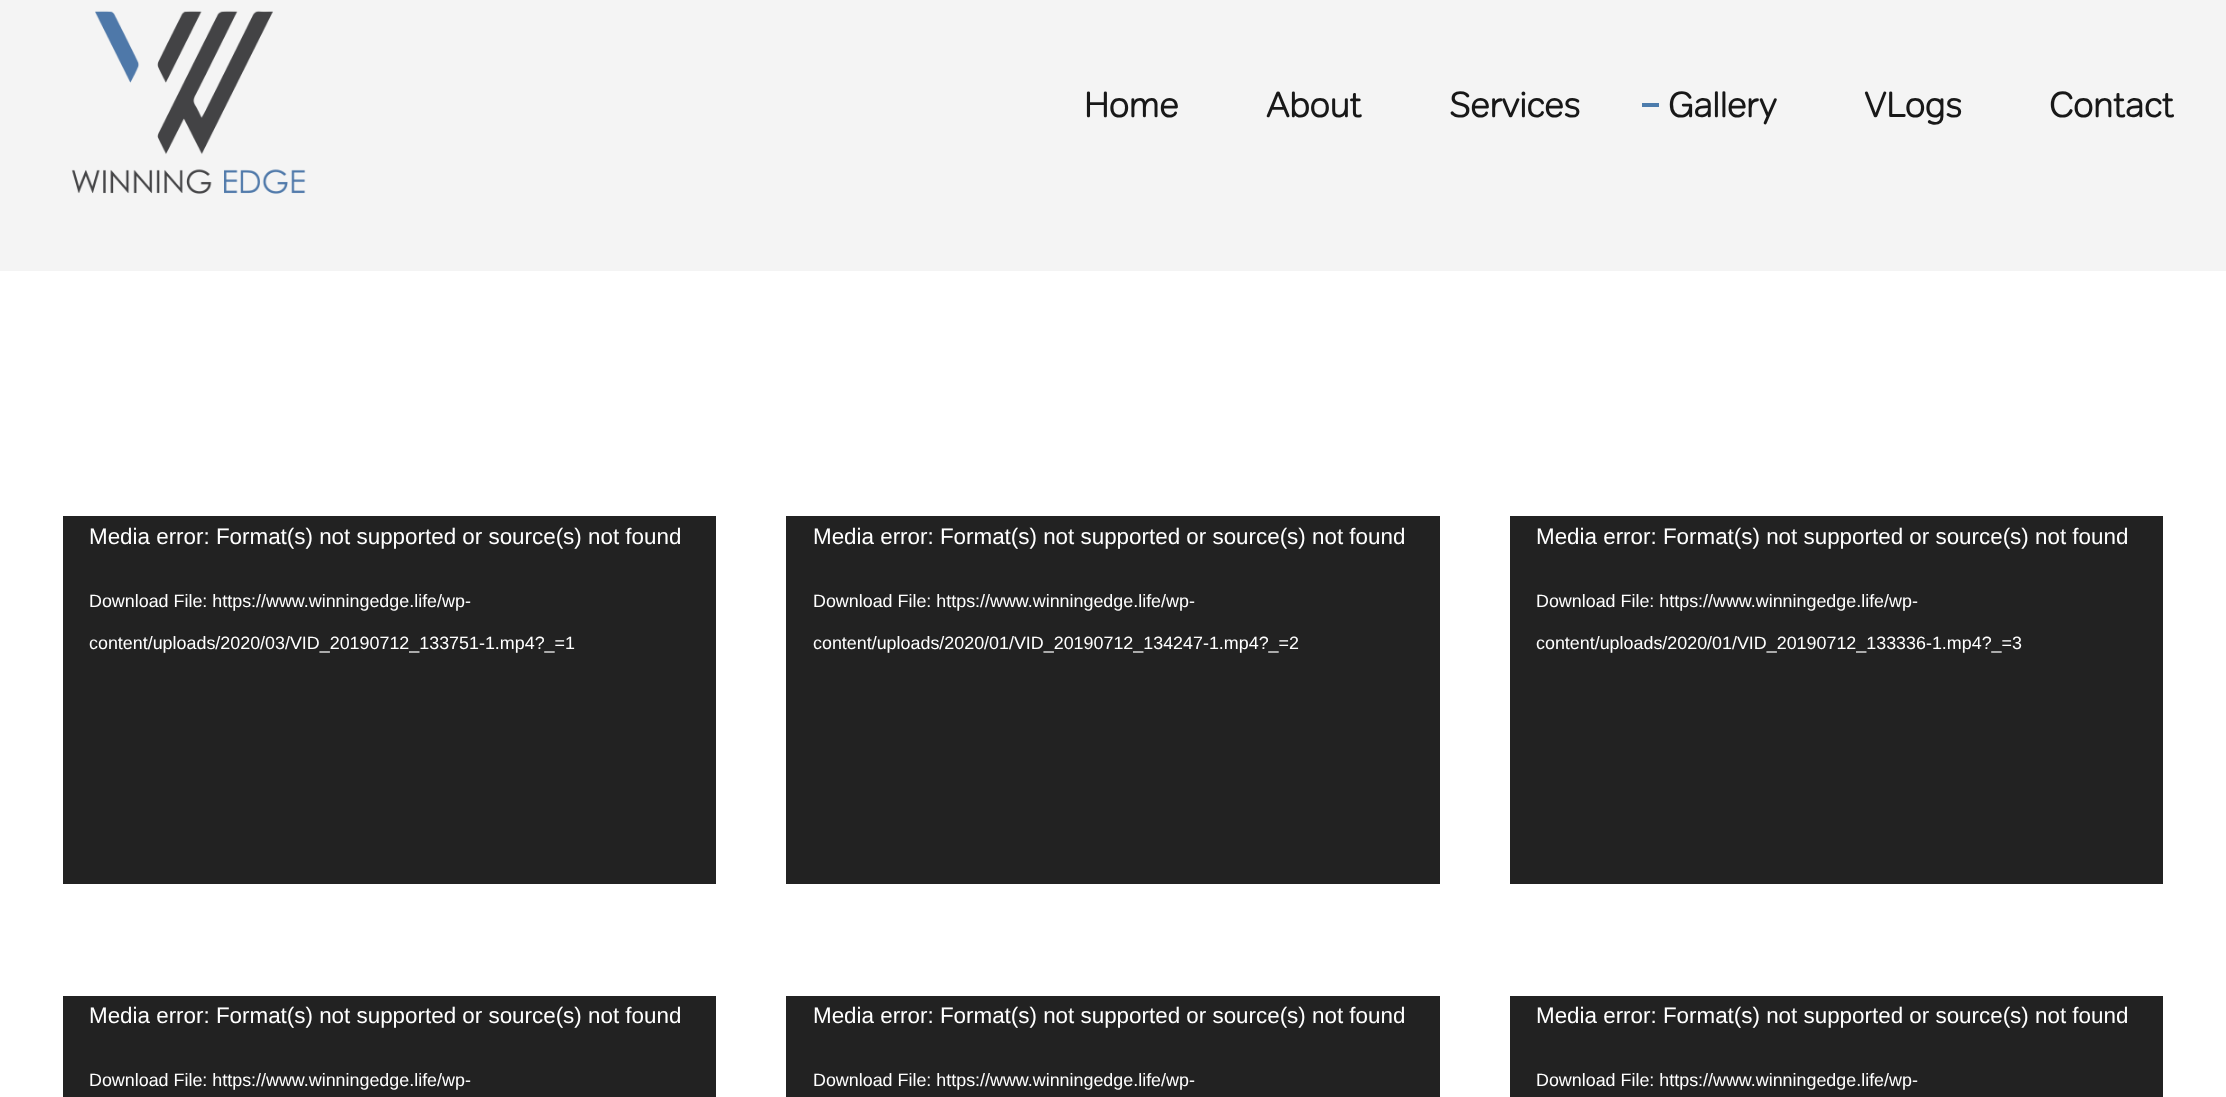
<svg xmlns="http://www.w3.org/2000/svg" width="2226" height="1097">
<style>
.a{font:bold 35px 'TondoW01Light';fill:#181818}
.b{font:22.4px Liberation Sans;fill:#fff}
.c{font:17.9px Liberation Sans;fill:#fff}
</style>
<rect width="100%" height="100%" fill="#fff"/>
<path fill="#f4f4f4" d="M0 0h2226v271H0z"/>
<image href="1.png" x="71" y="10" width="235" height="184"/>
<path fill="#4c7cac" d="M1642 103h17v4H1642z"/>
<path fill="#222" d="M63 516h653v368H63z"/>
<path fill="#222" d="M786 516h654v368H786z"/>
<path fill="#222" d="M1510 516h653v368H1510z"/>
<path fill="#222" d="M63 996h653v101H63z"/>
<path fill="#222" d="M786 996h654v101H786z"/>
<path fill="#222" d="M1510 996h653v101H1510z"/>
<text class="a" x="1084" y="117">Home</text>
<text class="a" x="1266" y="117">About</text>
<text class="a" x="1449" y="117">Services</text>
<text class="a" x="1668" y="117">Gallery</text>
<text class="a" x="1864" y="117">VLogs</text>
<text class="a" x="2049" y="117">Contact</text>
<text class="b" x="89" y="544">Media error: Format(s) not supported or source(s) not found</text>
<text class="c" x="89" y="607">Download File: https://www.winningedge.life/wp-</text>
<text class="c" x="89" y="649">content/uploads/2020/03/VID_20190712_133751-1.mp4?_=1</text>
<text class="b" x="813" y="544">Media error: Format(s) not supported or source(s) not found</text>
<text class="c" x="813" y="607">Download File: https://www.winningedge.life/wp-</text>
<text class="c" x="813" y="649">content/uploads/2020/01/VID_20190712_134247-1.mp4?_=2</text>
<text class="b" x="1536" y="544">Media error: Format(s) not supported or source(s) not found</text>
<text class="c" x="1536" y="607">Download File: https://www.winningedge.life/wp-</text>
<text class="c" x="1536" y="649">content/uploads/2020/01/VID_20190712_133336-1.mp4?_=3</text>
<text class="b" x="89" y="1023">Media error: Format(s) not supported or source(s) not found</text>
<text class="c" x="89" y="1086">Download File: https://www.winningedge.life/wp-</text>
<text class="b" x="813" y="1023">Media error: Format(s) not supported or source(s) not found</text>
<text class="c" x="813" y="1086">Download File: https://www.winningedge.life/wp-</text>
<text class="b" x="1536" y="1023">Media error: Format(s) not supported or source(s) not found</text>
<text class="c" x="1536" y="1086">Download File: https://www.winningedge.life/wp-</text>
</svg>
